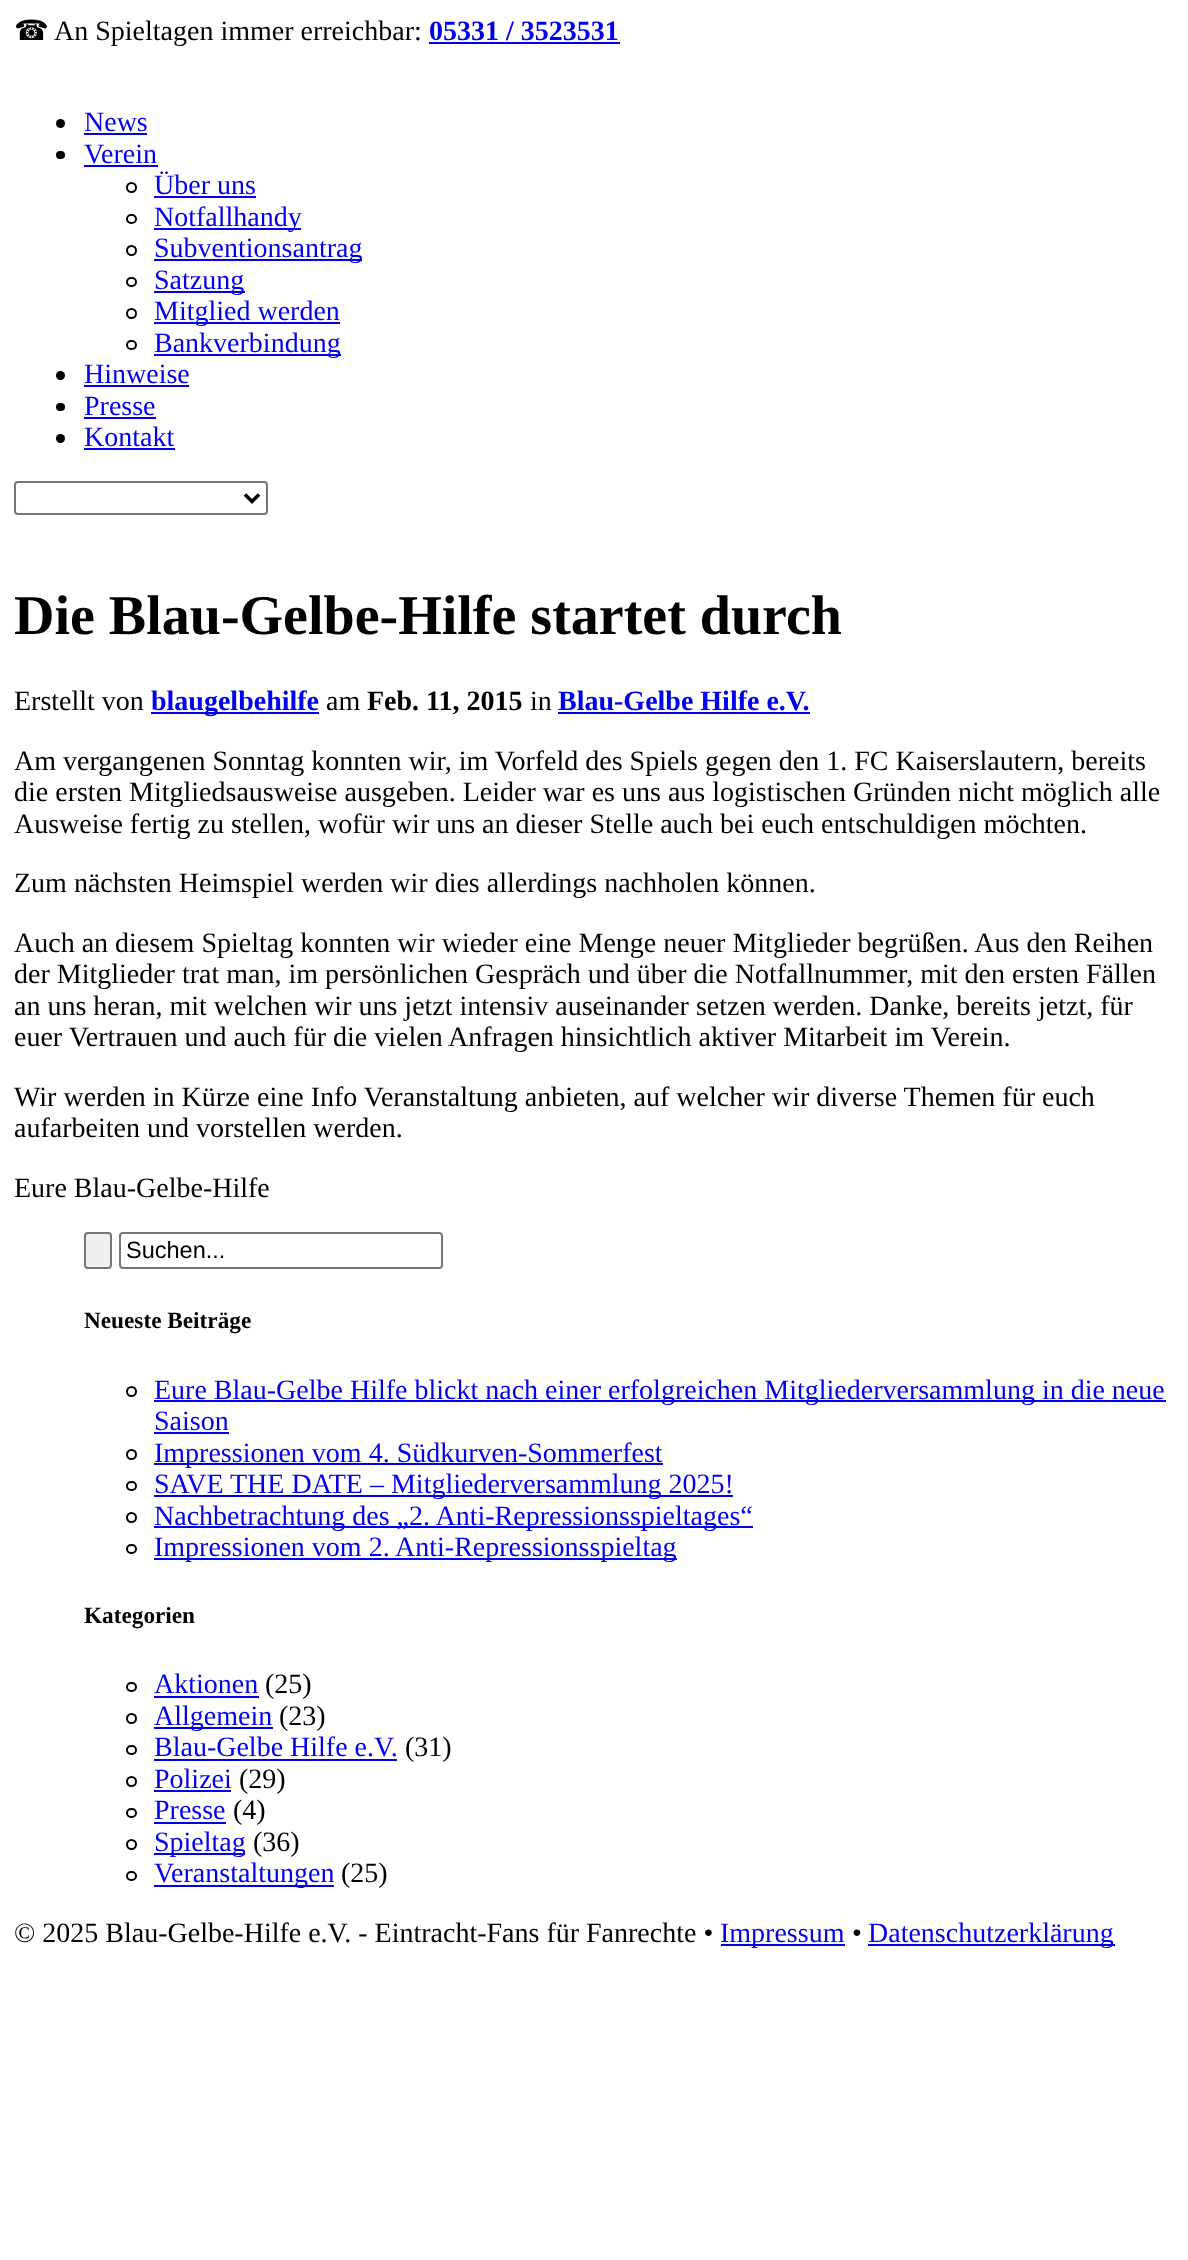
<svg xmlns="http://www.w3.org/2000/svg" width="1188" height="2260">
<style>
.a{font:28px DejaVu Sans;fill:#000}
.b{font:28px Liberation Serif;fill:#000}
.c{font:bold 28px Liberation Serif;fill:#00e}
.d{font:28px Liberation Serif;fill:#00e}
.e{font:bold 56px Liberation Serif;fill:#000}
.f{font:bold 28px Liberation Serif;fill:#000}
.g{font:23.5px Liberation Sans;fill:#000}
.h{font:bold 23.25px Liberation Serif;fill:#000}
</style>
<rect width="100%" height="100%" fill="#fff"/>
<path fill="#00e" d="M429 42h191v2H429z"/>
<circle fill="#000" cx="60.5" cy="123.5" r="4.5"/>
<path fill="#00e" d="M84 133h63v2H84z"/>
<rect fill="#000" x="56" y="151" width="9" height="8" rx="4"/>
<path fill="#00e" d="M84 165h74v2H84z"/>
<circle fill="none" stroke="#000" stroke-width="2" cx="131.5" cy="187.5" r="4.5"/>
<path fill="#00e" d="M154 196h102v2H154z"/>
<rect fill="none" stroke="#000" stroke-width="2" x="127" y="215" width="9" height="8" rx="4"/>
<path fill="#00e" d="M154 228h147v2H154z"/>
<circle fill="none" stroke="#000" stroke-width="2" cx="131.5" cy="250.5" r="4.5"/>
<path fill="#00e" d="M154 259h208v2H154z"/>
<rect fill="none" stroke="#000" stroke-width="2" x="127" y="278" width="9" height="8" rx="4"/>
<path fill="#00e" d="M154 291h91v2H154z"/>
<circle fill="none" stroke="#000" stroke-width="2" cx="131.5" cy="313.5" r="4.5"/>
<path fill="#00e" d="M154 322h186v2H154z"/>
<rect fill="none" stroke="#000" stroke-width="2" x="127" y="341" width="9" height="8" rx="4"/>
<path fill="#00e" d="M154 354h187v2H154z"/>
<circle fill="#000" cx="60.5" cy="375.5" r="4.5"/>
<path fill="#00e" d="M84 385h105v2H84z"/>
<rect fill="#000" x="56" y="403" width="9" height="8" rx="4"/>
<path fill="#00e" d="M84 417h72v2H84z"/>
<circle fill="#000" cx="60.5" cy="438.5" r="4.5"/>
<path fill="#00e" d="M84 448h91v2H84z"/>
<rect fill="none" stroke="#767676" stroke-width="2" x="15" y="482" width="252" height="32" rx="3"/>
<path fill="none" stroke="#000" stroke-width="3.5" d="M245 494.5l7 7l7-7"/>
<path fill="#00e" d="M151 712h168v2H151z"/>
<path fill="#00e" d="M558 712h252v2H558z"/>
<rect fill="#efefef" stroke="#767676" stroke-width="2" x="85" y="1233" width="26" height="35" rx="3"/>
<rect fill="none" stroke="#767676" stroke-width="2" x="120" y="1233" width="322" height="35" rx="3"/>
<circle fill="none" stroke="#000" stroke-width="2" cx="131.5" cy="1391.5" r="4.5"/>
<path fill="#00e" d="M154 1400h1012v2H154z"/>
<path fill="#00e" d="M154 1432h75v2H154z"/>
<circle fill="none" stroke="#000" stroke-width="2" cx="131.5" cy="1454.5" r="4.5"/>
<path fill="#00e" d="M154 1463h509v2H154z"/>
<rect fill="none" stroke="#000" stroke-width="2" x="127" y="1482" width="9" height="8" rx="4"/>
<path fill="#00e" d="M154 1495h579v2H154z"/>
<circle fill="none" stroke="#000" stroke-width="2" cx="131.5" cy="1517.5" r="4.5"/>
<path fill="#00e" d="M154 1526h599v2H154z"/>
<rect fill="none" stroke="#000" stroke-width="2" x="127" y="1545" width="9" height="8" rx="4"/>
<path fill="#00e" d="M154 1558h523v2H154z"/>
<rect fill="none" stroke="#000" stroke-width="2" x="127" y="1683" width="9" height="8" rx="4"/>
<path fill="#00e" d="M154 1696h105v2H154z"/>
<circle fill="none" stroke="#000" stroke-width="2" cx="131.5" cy="1718.5" r="4.5"/>
<path fill="#00e" d="M154 1727h119v2H154z"/>
<rect fill="none" stroke="#000" stroke-width="2" x="127" y="1746" width="9" height="8" rx="4"/>
<path fill="#00e" d="M154 1759h243v2H154z"/>
<circle fill="none" stroke="#000" stroke-width="2" cx="131.5" cy="1781.5" r="4.5"/>
<path fill="#00e" d="M154 1790h77v2H154z"/>
<rect fill="none" stroke="#000" stroke-width="2" x="127" y="1809" width="9" height="8" rx="4"/>
<path fill="#00e" d="M154 1822h72v2H154z"/>
<circle fill="none" stroke="#000" stroke-width="2" cx="131.5" cy="1844.5" r="4.5"/>
<path fill="#00e" d="M154 1853h91v2H154z"/>
<rect fill="none" stroke="#000" stroke-width="2" x="127" y="1872" width="9" height="8" rx="4"/>
<path fill="#00e" d="M154 1885h180v2H154z"/>
<path fill="#00e" d="M721 1944h124v2H721z"/>
<path fill="#00e" d="M868 1944h247v2H868z"/>
<text class="a" x="14" y="40">☎</text>
<text class="b" x="54" y="40">An Spieltagen immer erreichbar:</text>
<text class="c" x="429" y="40">05331 / 3523531</text>
<text class="d" x="84" y="131">News</text>
<text class="d" x="84" y="163">Verein</text>
<text class="d" x="154" y="194">Über uns</text>
<text class="d" x="154" y="226">Notfallhandy</text>
<text class="d" x="154" y="257">Subventionsantrag</text>
<text class="d" x="154" y="289">Satzung</text>
<text class="d" x="154" y="320">Mitglied werden</text>
<text class="d" x="154" y="352">Bankverbindung</text>
<text class="d" x="84" y="383">Hinweise</text>
<text class="d" x="84" y="415">Presse</text>
<text class="d" x="84" y="446">Kontakt</text>
<text class="e" x="14" y="634">Die Blau-Gelbe-Hilfe startet durch</text>
<text class="b" x="14" y="710">Erstellt von</text>
<text class="c" x="151" y="710">blaugelbehilfe</text>
<text class="b" x="326" y="710">am</text>
<text class="f" x="367" y="710">Feb. 11, 2015</text>
<text class="b" x="530" y="710">in</text>
<text class="c" x="558" y="710">Blau-Gelbe Hilfe e.V.</text>
<text class="b" x="14" y="770">Am vergangenen Sonntag konnten wir, im Vorfeld des Spiels gegen den 1. FC Kaiserslautern, bereits</text>
<text class="b" x="14" y="801">die ersten Mitgliedsausweise ausgeben. Leider war es uns aus logistischen Gründen nicht möglich alle</text>
<text class="b" x="14" y="833">Ausweise fertig zu stellen, wofür wir uns an dieser Stelle auch bei euch entschuldigen möchten.</text>
<text class="b" x="14" y="892">Zum nächsten Heimspiel werden wir dies allerdings nachholen können.</text>
<text class="b" x="14" y="952">Auch an diesem Spieltag konnten wir wieder eine Menge neuer Mitglieder begrüßen. Aus den Reihen</text>
<text class="b" x="14" y="983">der Mitglieder trat man, im persönlichen Gespräch und über die Notfallnummer, mit den ersten Fällen</text>
<text class="b" x="14" y="1015">an uns heran, mit welchen wir uns jetzt intensiv auseinander setzen werden. Danke, bereits jetzt, für</text>
<text class="b" x="14" y="1046">euer Vertrauen und auch für die vielen Anfragen hinsichtlich aktiver Mitarbeit im Verein.</text>
<text class="b" x="14" y="1106">Wir werden in Kürze eine Info Veranstaltung anbieten, auf welcher wir diverse Themen für euch</text>
<text class="b" x="14" y="1137">aufarbeiten und vorstellen werden.</text>
<text class="b" x="14" y="1197">Eure Blau-Gelbe-Hilfe</text>
<text class="g" x="126" y="1258">Suchen...</text>
<text class="h" x="84" y="1328">Neueste Beiträge</text>
<text class="d" x="154" y="1399">Eure Blau-Gelbe Hilfe blickt nach einer erfolgreichen Mitgliederversammlung in die neue</text>
<text class="d" x="154" y="1430">Saison</text>
<text class="d" x="154" y="1462">Impressionen vom 4. Südkurven-Sommerfest</text>
<text class="d" x="154" y="1493">SAVE THE DATE – Mitgliederversammlung 2025!</text>
<text class="d" x="154" y="1525">Nachbetrachtung des „2. Anti-Repressionsspieltages“</text>
<text class="d" x="154" y="1556">Impressionen vom 2. Anti-Repressionsspieltag</text>
<text class="h" x="84" y="1623">Kategorien</text>
<text class="d" x="154" y="1693">Aktionen</text>
<text class="b" x="265" y="1693">(25)</text>
<text class="d" x="154" y="1725">Allgemein</text>
<text class="b" x="279" y="1725">(23)</text>
<text class="d" x="154" y="1756">Blau-Gelbe Hilfe e.V.</text>
<text class="b" x="405" y="1756">(31)</text>
<text class="d" x="154" y="1788">Polizei</text>
<text class="b" x="239" y="1788">(29)</text>
<text class="d" x="154" y="1819">Presse</text>
<text class="b" x="233" y="1819">(4)</text>
<text class="d" x="154" y="1851">Spieltag</text>
<text class="b" x="253" y="1851">(36)</text>
<text class="d" x="154" y="1882">Veranstaltungen</text>
<text class="b" x="341" y="1882">(25)</text>
<text class="b" x="14" y="1942">© 2025 Blau-Gelbe-Hilfe e.V. - Eintracht-Fans für Fanrechte •</text>
<text class="d" x="720" y="1942">Impressum</text>
<text class="b" x="852" y="1942">•</text>
<text class="d" x="868" y="1942">Datenschutzerklärung</text>
</svg>
